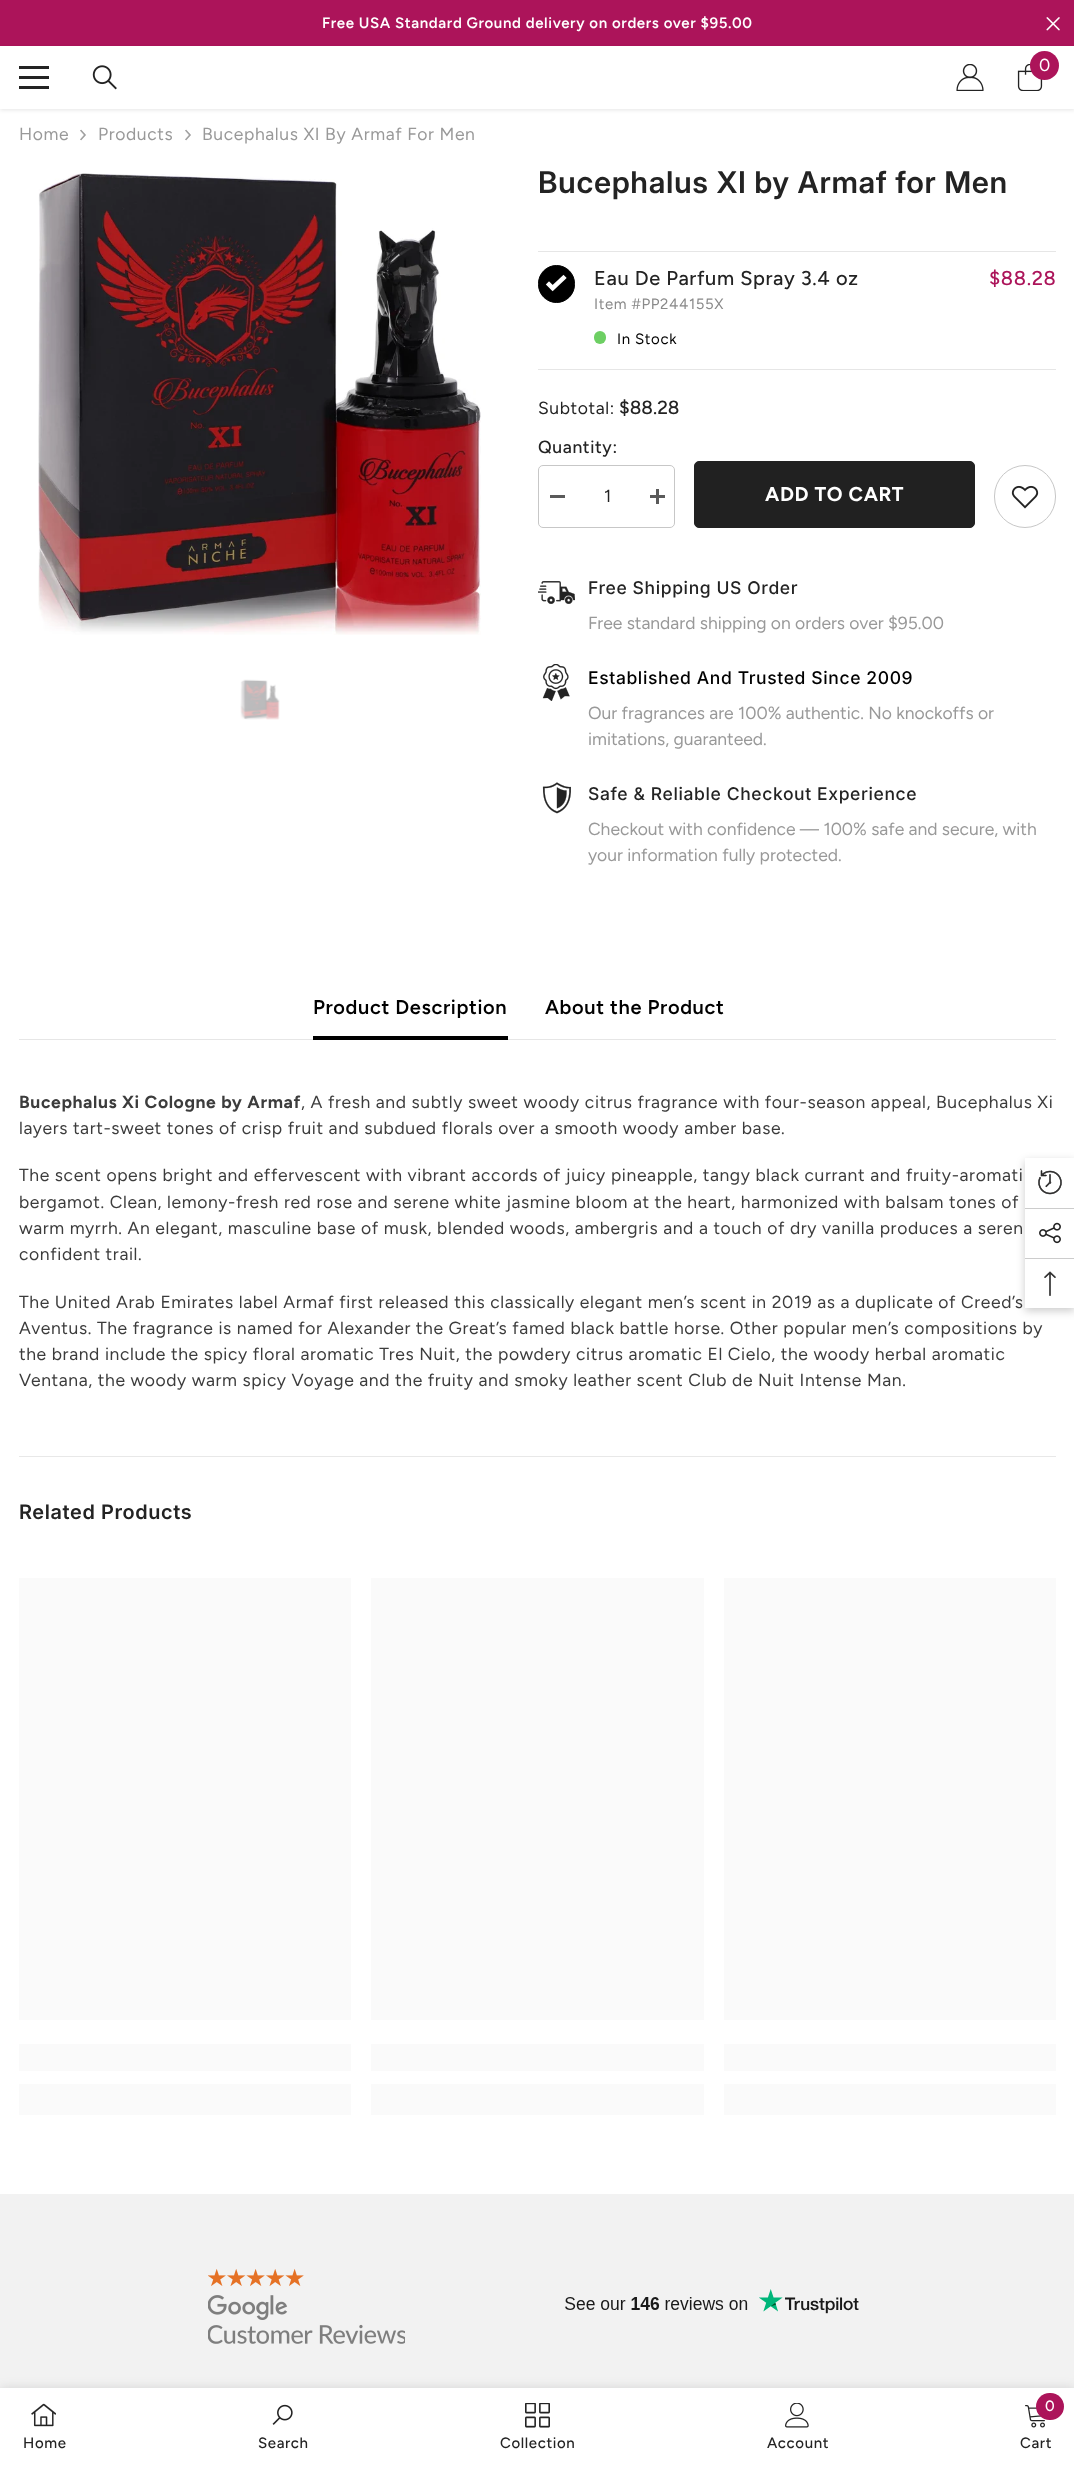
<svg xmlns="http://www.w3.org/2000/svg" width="1074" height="2465">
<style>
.a{font:600 15px Figtree;letter-spacing:0.62px;fill:#fff}
.b{font:17.5px Figtree;fill:#fff}
.c{font:17.5px Figtree;letter-spacing:0.62px;fill:#999}
.d{font:600 30px 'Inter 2';letter-spacing:0.62px;fill:#232323}
.e{font:500 20px Figtree;letter-spacing:0.62px;fill:#232323}
.f{font:500 20px Figtree;letter-spacing:0.62px;fill:#ac145a}
.g{font:15px Figtree;letter-spacing:0.62px;fill:#8a8a8a}
.h{font:15px Figtree;letter-spacing:0.62px;fill:#000}
.i{font:17.5px Figtree;letter-spacing:0.62px;fill:#232323}
.j{font:500 19px Figtree;fill:#232323}
.k{font:500 17.5px Figtree;letter-spacing:0.62px;fill:#232323}
.l{font:bold 20px Figtree;letter-spacing:0.62px;fill:#fff}
.m{font:500 17.5px Inter;letter-spacing:0.62px;fill:#232323}
.n{font:17.5px Figtree;fill:#999}
.o{font:500 17.5px Inter;letter-spacing:0.62px;fill:#000}
.p{font:600 20px Figtree;letter-spacing:0.62px;fill:#000}
.q{font:bold 17.5px Figtree;letter-spacing:0.62px;fill:#3c3c3c}
.r{font:17.5px Figtree;letter-spacing:0.62px;fill:#3c3c3c}
.s{font:600 20px Inter;letter-spacing:0.62px;fill:#232323}
.t{font:500 15px Figtree;letter-spacing:0.62px;fill:#232323}
.u{font:500 15px Figtree;fill:#fff}
</style>
<defs>
<linearGradient id="g1" gradientUnits="userSpaceOnUse" x1="-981" y1="2058" x2="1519" y2="2058"><stop offset="0.04" stop-color="#fafafa"/><stop offset="0.25" stop-color="#f1f2f3"/><stop offset="0.36" stop-color="#fafafa"/></linearGradient>
<linearGradient id="g2" gradientUnits="userSpaceOnUse" x1="-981" y1="2099" x2="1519" y2="2099"><stop offset="0.04" stop-color="#fafafa"/><stop offset="0.25" stop-color="#f1f2f3"/><stop offset="0.36" stop-color="#fafafa"/></linearGradient>
<linearGradient id="g3" gradientUnits="userSpaceOnUse" x1="-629" y1="2058" x2="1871" y2="2058"><stop offset="0.04" stop-color="#fafafa"/><stop offset="0.25" stop-color="#f1f2f3"/><stop offset="0.36" stop-color="#fafafa"/></linearGradient>
<linearGradient id="g4" gradientUnits="userSpaceOnUse" x1="-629" y1="2099" x2="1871" y2="2099"><stop offset="0.04" stop-color="#fafafa"/><stop offset="0.25" stop-color="#f1f2f3"/><stop offset="0.36" stop-color="#fafafa"/></linearGradient>
<linearGradient id="g5" gradientUnits="userSpaceOnUse" x1="-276" y1="2058" x2="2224" y2="2058"><stop offset="0.04" stop-color="#fafafa"/><stop offset="0.25" stop-color="#f1f2f3"/><stop offset="0.36" stop-color="#fafafa"/></linearGradient>
<linearGradient id="g6" gradientUnits="userSpaceOnUse" x1="-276" y1="2099" x2="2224" y2="2099"><stop offset="0.04" stop-color="#fafafa"/><stop offset="0.25" stop-color="#f1f2f3"/><stop offset="0.36" stop-color="#fafafa"/></linearGradient>
</defs>
<rect width="100%" height="100%" fill="#fff"/>
<path fill="#ac145a" d="M0 0h1074v46H0z"/>
<image href="1.png" x="1046" y="17" width="14" height="14"/>
<path fill="#0000001a" filter="blur(2px)" d="M0 48h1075v62H0z"/>
<path fill="#fff" d="M0 46h1074v63H0z"/>
<path fill="#232323" d="M19 76h30v3H19z"/>
<path fill="#232323" d="M19 66h30v3H19z"/>
<path fill="#232323" d="M19 86h30v3H19z"/>
<image href="2.png" x="92" y="65" width="25" height="25"/>
<image href="3.png" x="956" y="64" width="28" height="27"/>
<image href="4.png" x="1017" y="64" width="26" height="27"/>
<circle fill="#ac145a" cx="1044.5" cy="65.5" r="14.5"/>
<image href="5.png" x="80" y="129" width="6" height="12"/>
<image href="5.png" x="185" y="129" width="6" height="12"/>
<image href="6.png" x="38" y="173" width="443" height="462"/>
<image href="7.png" x="240" y="679" width="40" height="41"/>
<path fill="#e6e6e6" d="M538 251h518v1H538z"/>
<path fill="#e6e6e6" d="M538 369h518v1H538z"/>
<rect fill="#000" stroke="#000" x="538.5" y="265.5" width="36" height="37" rx="18"/>
<image href="8.png" x="545" y="274" width="22" height="18"/>
<rect fill="#6dcf63" x="594" y="331" width="12" height="13" rx="6"/>
<rect fill="none" stroke="#c7c7c7" x="538.5" y="465.5" width="136" height="62" rx="4.5"/>
<path fill="#5a5a5a" d="M550 495h15v3H550z"/>
<path fill="#5a5a5a" d="M650 495h15v3H650z"/>
<path fill="#5a5a5a" d="M656 489h3v15H656z"/>
<rect fill="#212121" stroke="#212121" x="694.5" y="461.5" width="280" height="66" rx="4.5"/>
<rect fill="none" stroke="#c7c7c7" x="994.5" y="465.5" width="61" height="62" rx="30.5"/>
<image href="9.png" x="1011" y="485" width="28" height="24"/>
<image href="10.png" x="538" y="581" width="37" height="23"/>
<image href="11.png" x="542" y="664" width="28" height="37"/>
<image href="12.png" x="542" y="782" width="29" height="32"/>
<path fill="#e6e6e6" d="M19 1039h1037v1H19z"/>
<path fill="#000" d="M313 1036h195v4H313z"/>
<path fill="#e8e8e8" d="M19 1456h1037v1H19z"/>
<path fill="#fafafa" d="M19 1578h332v442H19z"/>
<path fill="url(#g1)" d="M19 2044h332v27H19z"/>
<path fill="url(#g2)" d="M19 2084h332v31H19z"/>
<path fill="#fafafa" d="M371 1578h333v442H371z"/>
<path fill="url(#g3)" d="M371 2044h333v27H371z"/>
<path fill="url(#g4)" d="M371 2084h333v31H371z"/>
<path fill="#fafafa" d="M724 1578h332v442H724z"/>
<path fill="url(#g5)" d="M724 2044h332v27H724z"/>
<path fill="url(#g6)" d="M724 2084h332v31H724z"/>
<path fill="#f2f2f2" d="M0 2194h1074v194H0z"/>
<image href="13.png" x="208" y="2269" width="197" height="75"/>
<image href="14.png" x="565" y="2289" width="294" height="25"/>
<path fill="#0000001f" filter="blur(5.5px)" d="M0 2388h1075v77H0z"/>
<path fill="#fff" d="M0 2388h1074v77H0z"/>
<image href="15.png" x="31" y="2403" width="25" height="24"/>
<image href="16.png" x="272" y="2404" width="21" height="21"/>
<image href="17.png" x="525" y="2403" width="25" height="25"/>
<image href="18.png" x="785" y="2403" width="24" height="25"/>
<image href="19.png" x="1025" y="2405" width="20" height="23"/>
<rect fill="#ac145a" x="1036" y="2393" width="28" height="27" rx="13.5"/>
<path fill="#00000033" filter="blur(4.5px)" d="M1025 1161h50v150H1025z"/>
<path fill="#fff" d="M1025 1158h49v150H1025z"/>
<image href="20.png" x="1038" y="1170" width="24" height="25"/>
<path fill="#ccc" d="M1025 1208h49v1H1025z"/>
<image href="21.png" x="1039" y="1222" width="22" height="22"/>
<path fill="#ccc" d="M1025 1258h49v1H1025z"/>
<image href="22.png" x="1044" y="1271" width="12" height="25"/>
<text class="a" x="322" y="28">Free USA Standard Ground delivery on orders over $95.00</text>
<text class="b" x="1039" y="71">0</text>
<text class="c" x="19" y="140">Home</text>
<text class="c" x="98" y="140">Products</text>
<text class="c" x="202" y="140">Bucephalus XI By Armaf For Men</text>
<text class="d" x="538" y="193">Bucephalus XI by Armaf for Men</text>
<text class="e" x="594" y="285">Eau De Parfum Spray 3.4 oz</text>
<text class="f" x="989" y="285">$88.28</text>
<text class="g" x="594" y="309">Item #PP244155X</text>
<text class="h" x="617" y="344">In Stock</text>
<text class="i" x="538" y="414">Subtotal:</text>
<text class="j" x="619" y="414">$88.28</text>
<text class="k" x="538" y="453">Quantity:</text>
<text class="i" x="604" y="502">1</text>
<text class="l" x="765" y="501">ADD TO CART</text>
<text class="m" x="588" y="594">Free Shipping US Order</text>
<text class="n" x="588" y="629">Free standard shipping on orders over $95.00</text>
<text class="o" x="588" y="684">Established And Trusted Since 2009</text>
<text class="n" x="588" y="719">Our fragrances are 100% authentic. No knockoffs or</text>
<text class="n" x="588" y="745">imitations, guaranteed.</text>
<text class="m" x="588" y="800">Safe &amp; Reliable Checkout Experience</text>
<text class="n" x="588" y="835">Checkout with confidence — 100% safe and secure, with</text>
<text class="n" x="588" y="861">your information fully protected.</text>
<text class="p" x="313" y="1014">Product Description</text>
<text class="p" x="545" y="1014">About the Product</text>
<text class="q" x="19" y="1108">Bucephalus Xi Cologne by Armaf</text>
<text class="r" x="301" y="1108">, A fresh and subtly sweet woody citrus fragrance with four-season appeal, Bucephalus Xi</text>
<text class="r" x="19" y="1134">layers tart-sweet tones of crisp fruit and subdued florals over a smooth woody amber base.</text>
<text class="r" x="19" y="1181">The scent opens bright and effervescent with vibrant accords of juicy pineapple, tangy black currant and fruity-aromati</text>
<text class="r" x="19" y="1208">bergamot. Clean, lemony-fresh red rose and serene white jasmine bloom at the heart, harmonized with balsam tones of</text>
<text class="r" x="19" y="1234">warm myrrh. An elegant, masculine base of musk, blended woods, ambergris and a touch of dry vanilla produces a seren</text>
<text class="r" x="19" y="1260">confident trail.</text>
<text class="r" x="19" y="1308">The United Arab Emirates label Armaf first released this classically elegant men’s scent in 2019 as a duplicate of Creed’s</text>
<text class="r" x="19" y="1334">Aventus. The fragrance is named for Alexander the Great’s famed black battle horse. Other popular men’s compositions by</text>
<text class="r" x="19" y="1360">the brand include the spicy floral aromatic Tres Nuit, the powdery citrus aromatic El Cielo, the woody herbal aromatic</text>
<text class="r" x="19" y="1386">Ventana, the woody warm spicy Voyage and the fruity and smoky leather scent Club de Nuit Intense Man.</text>
<text class="s" x="19" y="1519">Related Products</text>
<text class="t" x="23" y="2448">Home</text>
<text class="t" x="258" y="2448">Search</text>
<text class="t" x="500" y="2448">Collection</text>
<text class="t" x="767" y="2448">Account</text>
<text class="u" x="1045" y="2411">0</text>
<text class="t" x="1020" y="2448">Cart</text>
</svg>
